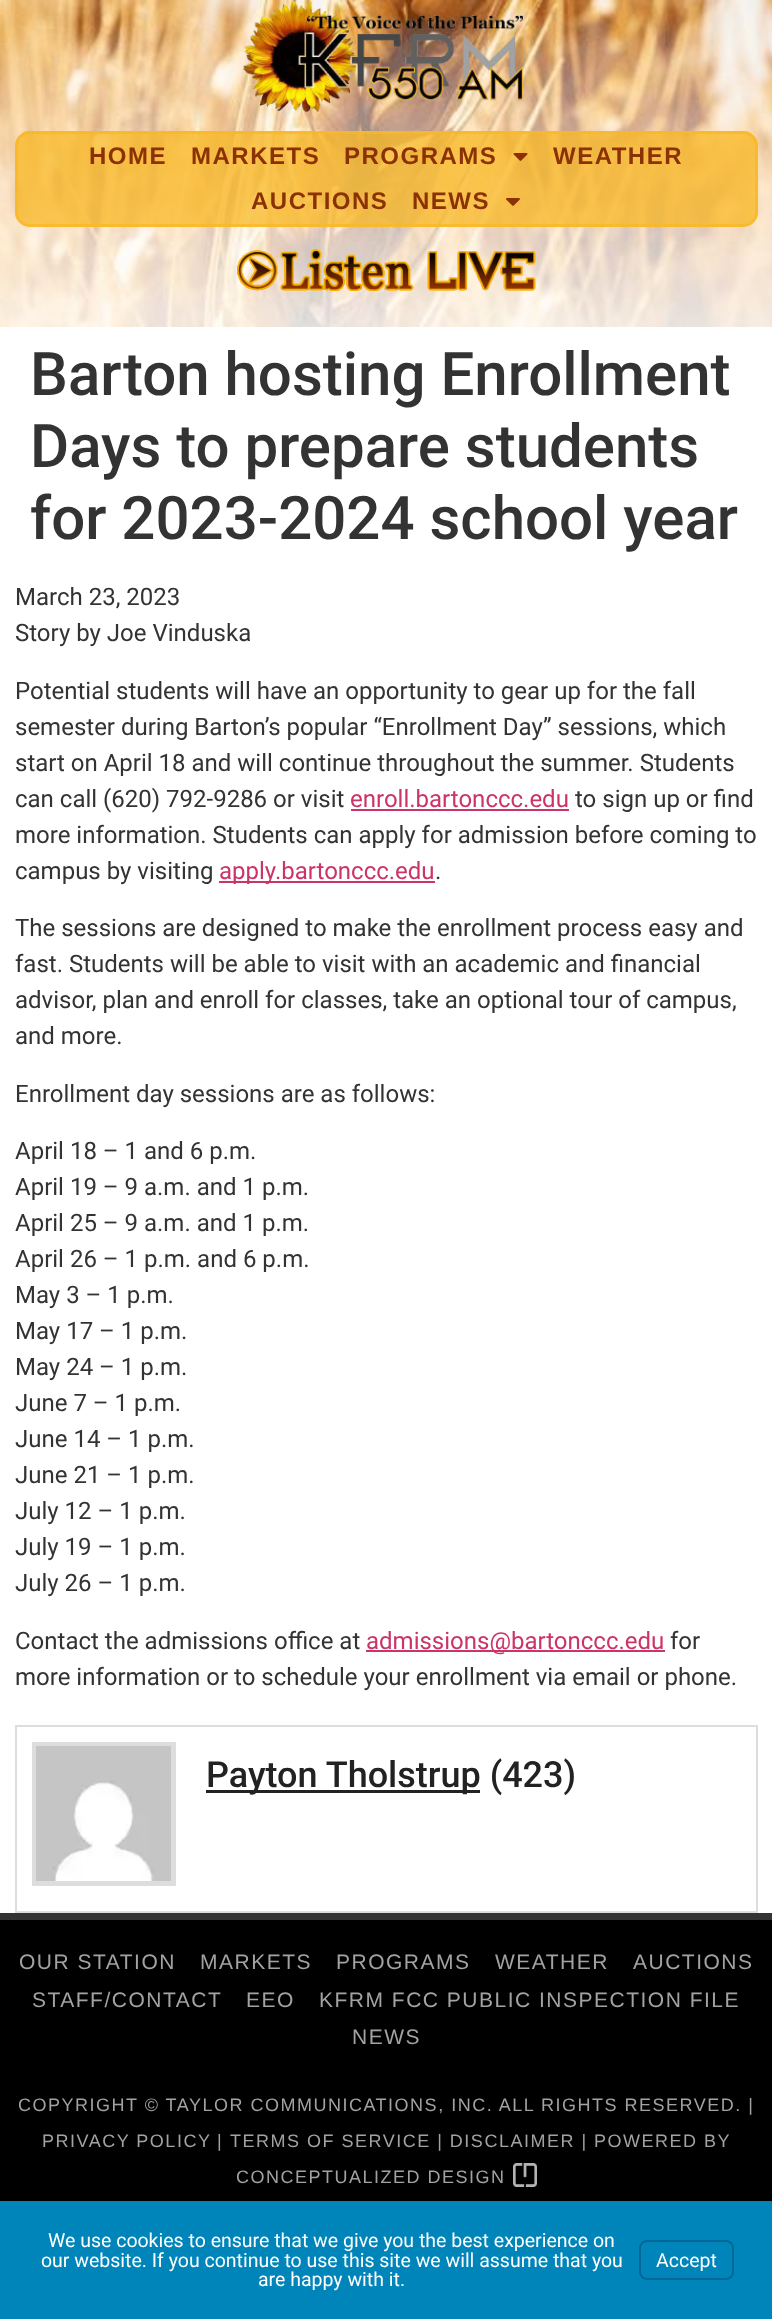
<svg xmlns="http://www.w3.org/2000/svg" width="772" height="2319">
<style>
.a{font:bold 24px Liberation Sans;letter-spacing:1.5px;fill:#8b3103}
.b{font:500 60px Roboto;fill:#333}
.c{font:24px Roboto;fill:#333}
.d{font:24px Roboto;fill:#c36}
.e{font:500 36px Roboto;fill:#222}
.f{font:21px Liberation Sans;letter-spacing:1.5px;fill:#a2a2a2}
.g{font:18px Liberation Sans;letter-spacing:1.5px;fill:#a2a2a2}
.h{font:19.5px Roboto;fill:#fff}
</style>
<rect width="100%" height="100%" fill="#fff"/>
<image href="1.png" x="0" y="0" width="772" height="327"/>
<image href="2.png" x="243" y="1" width="281" height="112"/>
<rect fill="#f9b825c2" x="15" y="131" width="743" height="96" rx="15"/>
<rect fill="none" stroke="#f9b825c2" stroke-width="3" x="16.5" y="132.5" width="740" height="93" rx="13.5"/>
<image href="3.png" x="513" y="153" width="15" height="8"/>
<image href="4.png" x="506" y="198" width="14" height="8"/>
<image href="5.png" x="237" y="249" width="299" height="42"/>
<path fill="#c36" d="M351 809h218v2H351z"/>
<path fill="#c36" d="M219 881h216v2H219z"/>
<path fill="#c36" d="M366 1650h299v2H366z"/>
<path fill="none" stroke="#ddd" stroke-width="2" d="M16 1726h741v186H16z"/>
<path fill="none" stroke="#ddd" stroke-width="5" d="M34.5 1744.5h139v139H34.5z"/>
<image href="6.png" x="36" y="1746" width="135" height="135"/>
<path fill="#222" d="M206 1790h274v3H206z"/>
<path fill="#000" d="M0 1920h772v281H0z"/>
<path fill="#333" d="M0 1913h772v7H0z"/>
<image href="7.png" x="513" y="2163" width="24" height="24"/>
<path fill="#0085ba" d="M0 2201h772v118H0z"/>
<rect fill="none" stroke="#006799" stroke-width="2" x="640" y="2241" width="93" height="38" rx="7"/>
<text class="a" x="89" y="164">HOME</text>
<text class="a" x="191" y="164">MARKETS</text>
<text class="a" x="344" y="164">PROGRAMS</text>
<text class="a" x="553" y="164">WEATHER</text>
<text class="a" x="251" y="209">AUCTIONS</text>
<text class="a" x="412" y="209">NEWS</text>
<text class="b" x="30" y="395">Barton hosting Enrollment</text>
<text class="b" x="30" y="467">Days to prepare students</text>
<text class="b" x="30" y="539">for 2023-2024 school year</text>
<text class="c" x="15" y="605">March 23, 2023</text>
<text class="c" x="15" y="641">Story by Joe Vinduska</text>
<text class="c" x="15" y="699">Potential students will have an opportunity to gear up for the fall</text>
<text class="c" x="15" y="735">semester during Barton’s popular “Enrollment Day” sessions, which</text>
<text class="c" x="15" y="771">start on April 18 and will continue throughout the summer. Students</text>
<text class="c" x="15" y="807">can call (620) 792-9286 or visit</text>
<text class="d" x="350" y="807">enroll.bartonccc.edu</text>
<text class="c" x="575" y="807">to sign up or find</text>
<text class="c" x="15" y="843">more information. Students can apply for admission before coming to</text>
<text class="c" x="15" y="879">campus by visiting</text>
<text class="d" x="219" y="879">apply.bartonccc.edu</text>
<text class="c" x="435" y="879">.</text>
<text class="c" x="15" y="936">The sessions are designed to make the enrollment process easy and</text>
<text class="c" x="15" y="972">fast. Students will be able to visit with an academic and financial</text>
<text class="c" x="15" y="1008">advisor, plan and enroll for classes, take an optional tour of campus,</text>
<text class="c" x="15" y="1044">and more.</text>
<text class="c" x="15" y="1102">Enrollment day sessions are as follows:</text>
<text class="c" x="15" y="1159">April 18 – 1 and 6 p.m.</text>
<text class="c" x="15" y="1195">April 19 – 9 a.m. and 1 p.m.</text>
<text class="c" x="15" y="1231">April 25 – 9 a.m. and 1 p.m.</text>
<text class="c" x="15" y="1267">April 26 – 1 p.m. and 6 p.m.</text>
<text class="c" x="15" y="1303">May 3 – 1 p.m.</text>
<text class="c" x="15" y="1339">May 17 – 1 p.m.</text>
<text class="c" x="15" y="1375">May 24 – 1 p.m.</text>
<text class="c" x="15" y="1411">June 7 – 1 p.m.</text>
<text class="c" x="15" y="1447">June 14 – 1 p.m.</text>
<text class="c" x="15" y="1483">June 21 – 1 p.m.</text>
<text class="c" x="15" y="1519">July 12 – 1 p.m.</text>
<text class="c" x="15" y="1555">July 19 – 1 p.m.</text>
<text class="c" x="15" y="1591">July 26 – 1 p.m.</text>
<text class="c" x="15" y="1649">Contact the admissions office at</text>
<text class="d" x="366" y="1649">admissions@bartonccc.edu</text>
<text class="c" x="670" y="1649">for</text>
<text class="c" x="15" y="1685">more information or to schedule your enrollment via email or phone.</text>
<text class="e" x="206" y="1787">Payton Tholstrup (423)</text>
<text class="f" x="19" y="1969">OUR STATION</text>
<text class="f" x="200" y="1969">MARKETS</text>
<text class="f" x="336" y="1969">PROGRAMS</text>
<text class="f" x="495" y="1969">WEATHER</text>
<text class="f" x="633" y="1969">AUCTIONS</text>
<text class="f" x="32" y="2007">STAFF/CONTACT</text>
<text class="f" x="246" y="2007">EEO</text>
<text class="f" x="319" y="2007">KFRM FCC PUBLIC INSPECTION FILE</text>
<text class="f" x="352" y="2044">NEWS</text>
<text class="g" x="18" y="2111">COPYRIGHT © TAYLOR COMMUNICATIONS, INC. ALL RIGHTS RESERVED. |</text>
<text class="g" x="42" y="2147">PRIVACY POLICY</text>
<text class="g" x="217" y="2147">|</text>
<text class="g" x="230" y="2147">TERMS OF SERVICE | DISCLAIMER | POWERED BY</text>
<text class="g" x="236" y="2183">CONCEPTUALIZED DESIGN</text>
<text class="h" x="48" y="2247">We use cookies to ensure that we give you the best experience on</text>
<text class="h" x="41" y="2267">our website. If you continue to use this site we will assume that you</text>
<text class="h" x="258" y="2286">are happy with it.</text>
<text class="h" x="656" y="2267">Accept</text>
</svg>
